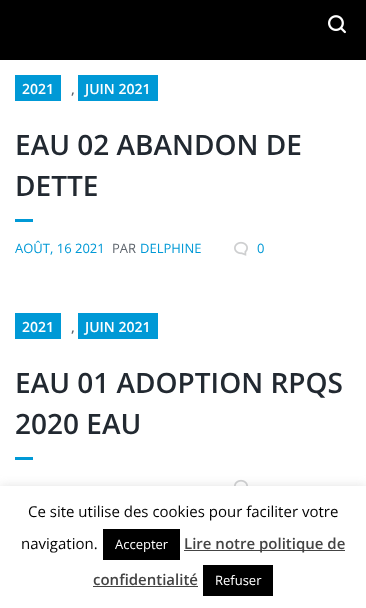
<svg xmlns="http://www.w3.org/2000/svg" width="366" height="608">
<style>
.a{font:600 14px Open Sans;fill:#fff}
.b{font:600 14px Open Sans;fill:#5f656d}
.c{font:600 28px Open Sans;fill:#222931}
.d{font:13px Open Sans;fill:#0099d6}
.e{font:13px Open Sans;fill:#5f656d}
.f{font:15px Open Sans;fill:#000}
.g{font:13px Open Sans;fill:#fff}
.h{font:600 15px Open Sans;fill:#444}
</style>
<rect width="100%" height="100%" fill="#fff"/>
<path fill="#000" d="M0 0h366v60H0z"/>
<image href="1.png" x="328" y="15" width="18" height="19"/>
<path fill="#0099d6" d="M15 75h46v26H15z"/>
<path fill="#0099d6" d="M78 75h80v26H78z"/>
<path fill="#0099d6" d="M15 219h18v3H15z"/>
<image href="2.png" x="234" y="241" width="14" height="15"/>
<path fill="#0099d6" d="M15 313h46v26H15z"/>
<path fill="#0099d6" d="M78 313h80v26H78z"/>
<path fill="#0099d6" d="M15 457h18v3H15z"/>
<image href="3.png" x="234" y="479" width="14" height="7"/>
<path fill="#acabab4d" filter="blur(5px)" d="M0 485h366v122H0z"/>
<path fill="#fff" d="M0 486h366v122H0z"/>
<path fill="#000" d="M103 529h77v31H103z"/>
<path fill="#444" d="M184 550h161v1H184z"/>
<path fill="#444" d="M93 586h105v1H93z"/>
<path fill="#000" d="M203 565h70v31H203z"/>
<text class="a" x="22" y="94">2021</text>
<text class="b" x="71" y="94">,</text>
<text class="a" x="85" y="94">JUIN 2021</text>
<text class="c" x="15" y="155">EAU 02 ABANDON DE</text>
<text class="c" x="15" y="196">DETTE</text>
<text class="d" x="15" y="253">AOÛT, 16 2021</text>
<text class="e" x="112" y="253">PAR</text>
<text class="d" x="140" y="253">DELPHINE</text>
<text class="d" x="257" y="253">0</text>
<text class="a" x="22" y="332">2021</text>
<text class="b" x="71" y="332">,</text>
<text class="a" x="85" y="332">JUIN 2021</text>
<text class="c" x="15" y="393">EAU 01 ADOPTION RPQS</text>
<text class="c" x="15" y="434">2020 EAU</text>
<text class="f" x="28" y="517">Ce site utilise des cookies pour faciliter votre</text>
<text class="f" x="21" y="549">navigation.</text>
<text class="g" x="115" y="549">Accepter</text>
<text class="h" x="184" y="549">Lire notre politique de</text>
<text class="h" x="93" y="585">confidentialité</text>
<text class="g" x="215" y="585">Refuser</text>
</svg>
